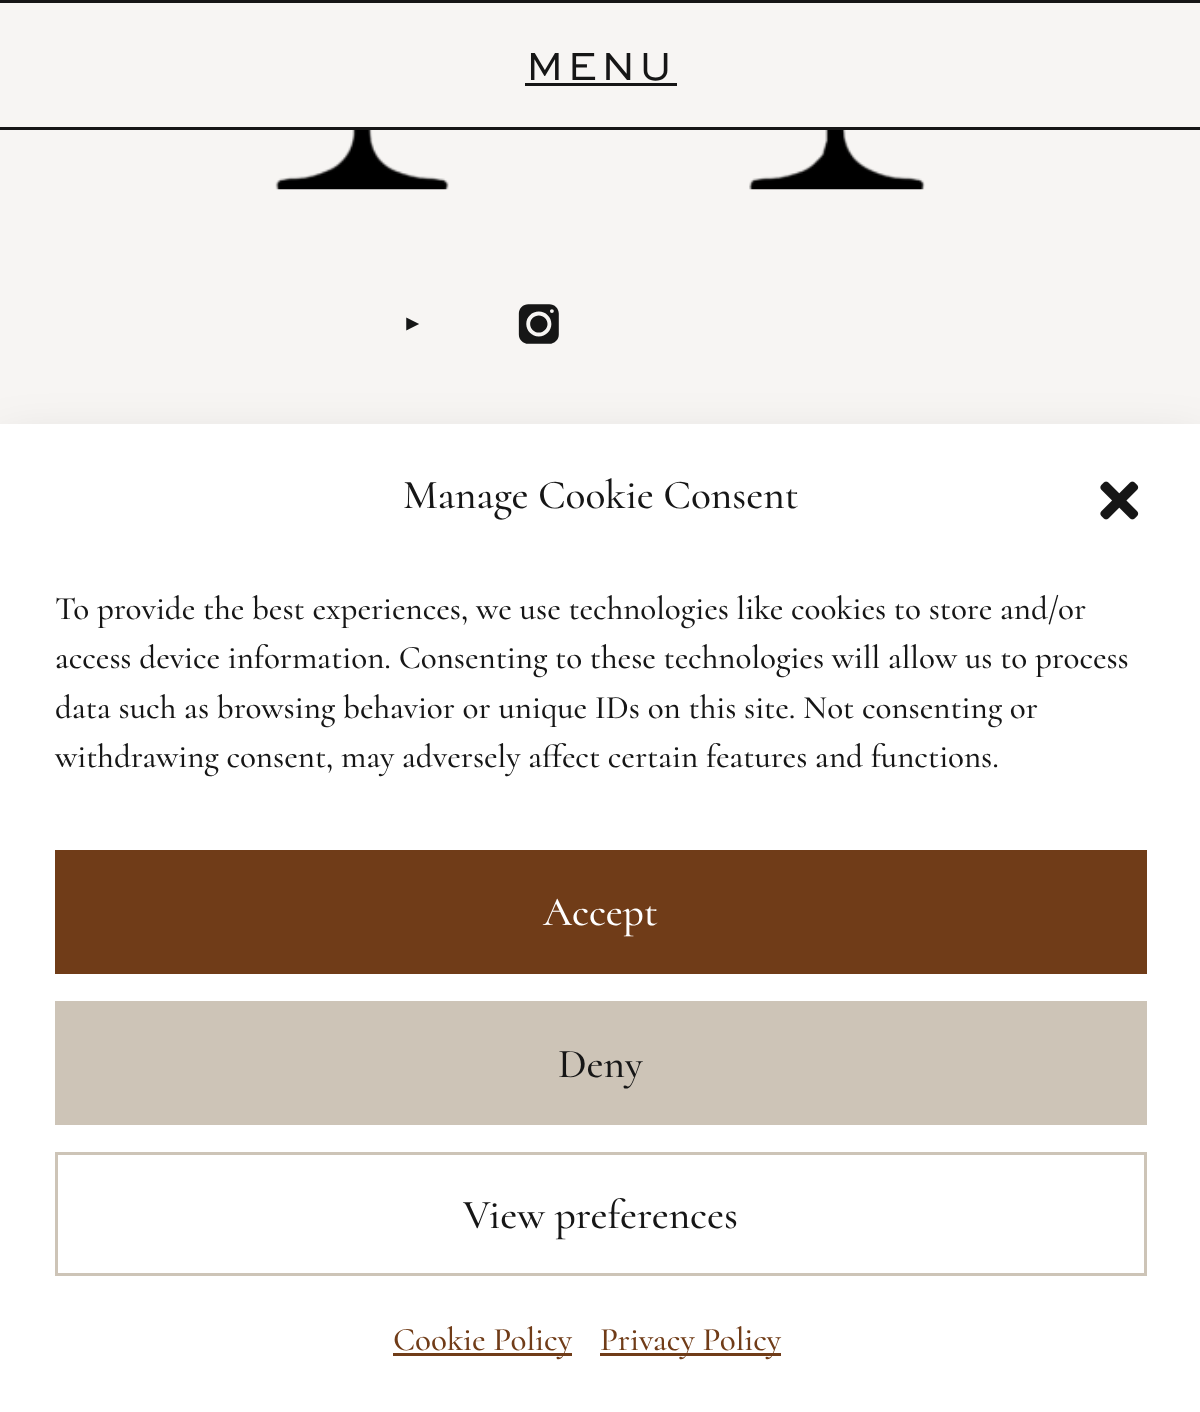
<svg xmlns="http://www.w3.org/2000/svg" width="1200" height="1412">
<style>
.a{font:41.25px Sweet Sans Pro;letter-spacing:4px;fill:#161616}
.b{font:500 41.25px Cormorant;fill:#161616}
.c{font:500 33px Cormorant;fill:#161616}
.d{font:500 41.25px Cormorant;fill:#fff}
.e{font:500 33px Cormorant;fill:#703c18}
</style>
<rect width="100%" height="100%" fill="#f7f5f3"/>
<path fill="#161616" d="M0 0h1200v3H0z"/>
<path fill="#161616" d="M0 127h1200v3H0z"/>
<path fill="#161616" d="M525 83h152v3H525z"/>
<image href="1.png" x="275" y="130" width="650" height="60"/>
<image href="2.png" x="406" y="317" width="13" height="14"/>
<image href="3.png" x="518" y="304" width="41" height="40"/>
<path fill="#00000030" filter="blur(27.5px)" d="M0 451h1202v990H0z"/>
<path fill="#fff" d="M0 424h1200v988H0z"/>
<image href="4.png" x="1100" y="481" width="39" height="39"/>
<path fill="#703c18" d="M55 850h1092v124H55z"/>
<path fill="#cdc4b7" d="M55 1001h1092v124H55z"/>
<path fill="none" stroke="#cdc4b7" stroke-width="3" d="M56.5 1153.5h1089v121H56.5z"/>
<path fill="#703c18" d="M393 1353h179v3H393z"/>
<path fill="#703c18" d="M600 1353h181v3H600z"/>
<text class="a" x="526" y="80">MENU</text>
<text class="b" x="403" y="508">Manage Cookie Consent</text>
<text class="c" x="55" y="619">To provide the best experiences, we use technologies like cookies to store and/or</text>
<text class="c" x="55" y="668">access device information. Consenting to these technologies will allow us to process</text>
<text class="c" x="55" y="718">data such as browsing behavior or unique IDs on this site. Not consenting or</text>
<text class="c" x="55" y="767">withdrawing consent, may adversely affect certain features and functions.</text>
<text class="d" x="543" y="925">Accept</text>
<text class="b" x="558" y="1077">Deny</text>
<text class="b" x="463" y="1228">View preferences</text>
<text class="e" x="393" y="1350">Cookie Policy</text>
<text class="e" x="600" y="1350">Privacy Policy</text>
</svg>
